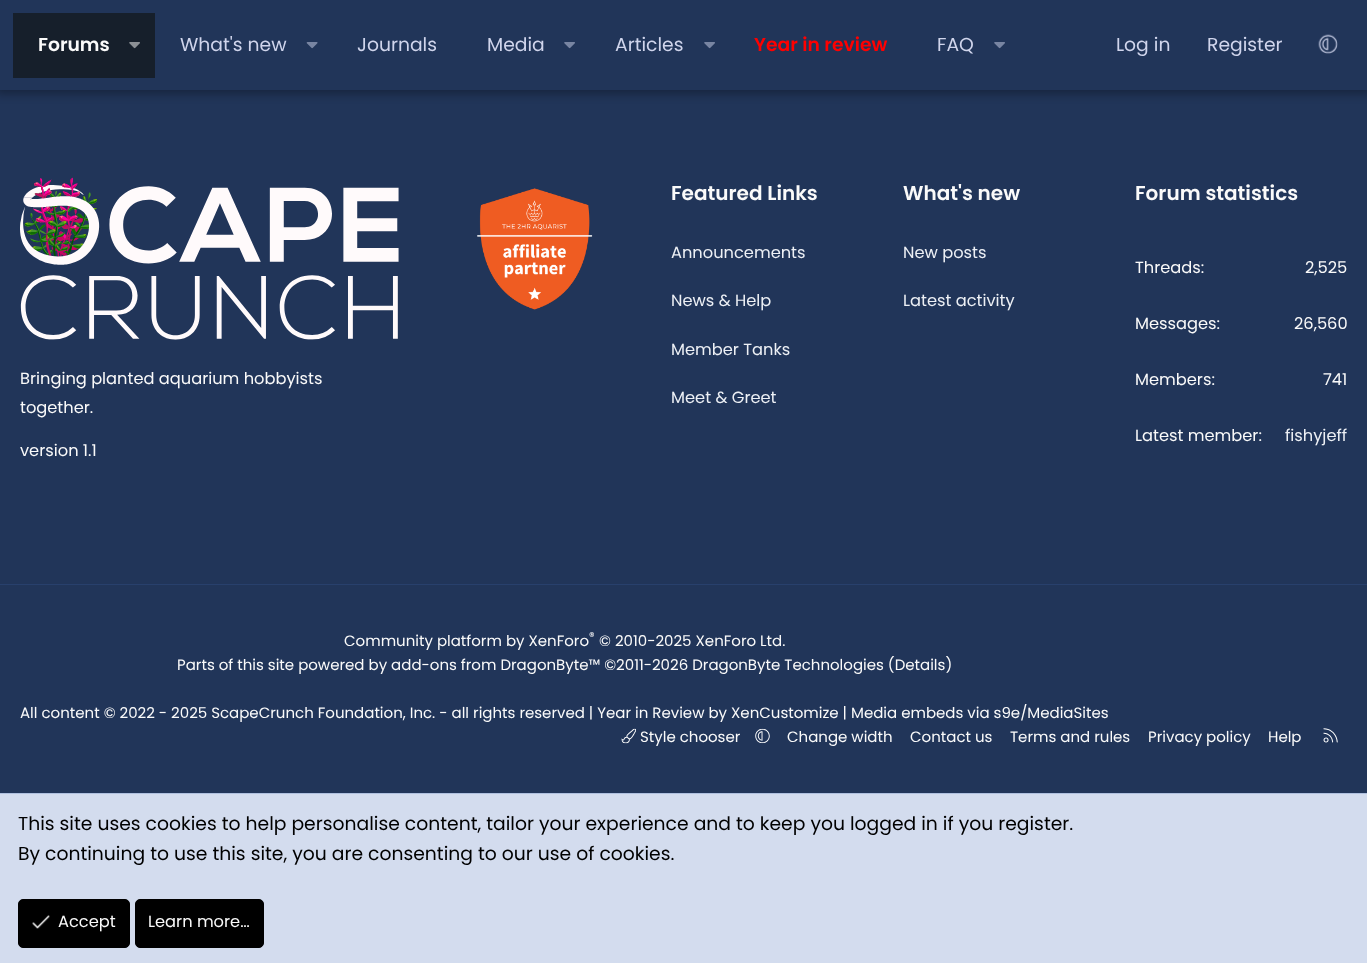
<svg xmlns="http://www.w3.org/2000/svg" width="1367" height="963">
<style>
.a{font:600 18.75px Poppins;fill:#fafafa}
.b{font:18.75px Poppins;fill:#d0d5ec}
.c{font:600 18.75px Poppins;fill:#f00}
.d{font:600 20px Poppins;fill:#fafafa}
.e{font:16.25px Poppins;fill:#edf0f5}
.f{font:16.25px Poppins;fill:#fafafa}
.g{font:15px Poppins;fill:#fafafa}
.h{font:11px Poppins;fill:#fafafa}
.i{font:18.75px Poppins;fill:#000}
</style>
<rect width="100%" height="100%" fill="#213559"/>
<path fill="#0000004d" filter="blur(5px)" d="M-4 -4h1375v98H-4z"/>
<path fill="#213559" d="M0 0h1367v90H0z"/>
<path fill="#161f2b" d="M13 13h142v65H13z"/>
<image href="1.png" x="129" y="42" width="11" height="7"/>
<image href="2.png" x="306" y="42" width="12" height="7"/>
<image href="3.png" x="564" y="42" width="11" height="7"/>
<image href="3.png" x="704" y="42" width="11" height="7"/>
<image href="3.png" x="994" y="42" width="11" height="7"/>
<image href="4.png" x="1318" y="34" width="20" height="20"/>
<image href="5.png" x="477" y="188" width="116" height="122"/>
<image href="6.png" x="20" y="177" width="379" height="163"/>
<path fill="#28406c" d="M0 584h1367v1H0z"/>
<image href="7.png" x="621" y="728" width="15" height="16"/>
<image href="8.png" x="755" y="728" width="15" height="16"/>
<image href="9.png" x="1323" y="728" width="15" height="15"/>
<path fill="#d3dcee" d="M0 794h1367v169H0z"/>
<path fill="#afc0df" d="M0 793h1367v1H0z"/>
<rect fill="#000" stroke="#000" x="18.5" y="899.5" width="111" height="48" rx="4.5"/>
<image href="10.png" x="32" y="915" width="18" height="14"/>
<rect fill="#000" stroke="#000" x="135.5" y="899.5" width="128" height="48" rx="4.5"/>
<text class="a" x="38" y="51">Forums</text>
<text class="b" x="180" y="51">What's new</text>
<text class="b" x="357" y="51">Journals</text>
<text class="b" x="487" y="51">Media</text>
<text class="b" x="615" y="51">Articles</text>
<text class="c" x="754" y="51">Year in review</text>
<text class="b" x="937" y="51">FAQ</text>
<text class="b" x="1116" y="51">Log in</text>
<text class="b" x="1207" y="51">Register</text>
<text class="d" x="671" y="200">Featured Links</text>
<text class="e" x="671" y="258">Announcements</text>
<text class="e" x="671" y="306">News &amp; Help</text>
<text class="e" x="671" y="355">Member Tanks</text>
<text class="e" x="671" y="403">Meet &amp; Greet</text>
<text class="d" x="903" y="200">What's new</text>
<text class="e" x="903" y="258">New posts</text>
<text class="e" x="903" y="306">Latest activity</text>
<text class="d" x="1135" y="200">Forum statistics</text>
<text class="f" x="1135" y="273">Threads:</text>
<text class="f" x="1305" y="273">2,525</text>
<text class="f" x="1135" y="329">Messages:</text>
<text class="f" x="1294" y="329">26,560</text>
<text class="f" x="1135" y="385">Members:</text>
<text class="f" x="1323" y="385">741</text>
<text class="f" x="1135" y="441">Latest member:</text>
<text class="e" x="1285" y="441">fishyjeff</text>
<text class="f" x="20" y="384">Bringing planted aquarium hobbyists</text>
<text class="f" x="20" y="413">together.</text>
<text class="f" x="20" y="456">version 1.1</text>
<text class="g" x="344" y="646">Community platform by XenForo</text>
<text class="h" x="589" y="640">®</text>
<text class="g" x="599" y="646">© 2010-2025 XenForo Ltd.</text>
<text class="g" x="177" y="670">Parts of this site powered by add-ons from DragonByte™ ©2011-2026 DragonByte Technologies (Details)</text>
<text class="g" x="20" y="718">All content © 2022 - 2025 ScapeCrunch Foundation, Inc. - all rights reserved | Year in Review by XenCustomize | Media embeds via s9e/MediaSites</text>
<text class="g" x="640" y="742">Style chooser</text>
<text class="g" x="787" y="742">Change width</text>
<text class="g" x="910" y="742">Contact us</text>
<text class="g" x="1010" y="742">Terms and rules</text>
<text class="g" x="1148" y="742">Privacy policy</text>
<text class="g" x="1268" y="742">Help</text>
<text class="i" x="18" y="830">This site uses cookies to help personalise content, tailor your experience and to keep you logged in if you register.</text>
<text class="i" x="18" y="860">By continuing to use this site, you are consenting to our use of cookies.</text>
<text class="f" x="58" y="927">Accept</text>
<text class="f" x="148" y="927">Learn more…</text>
</svg>
